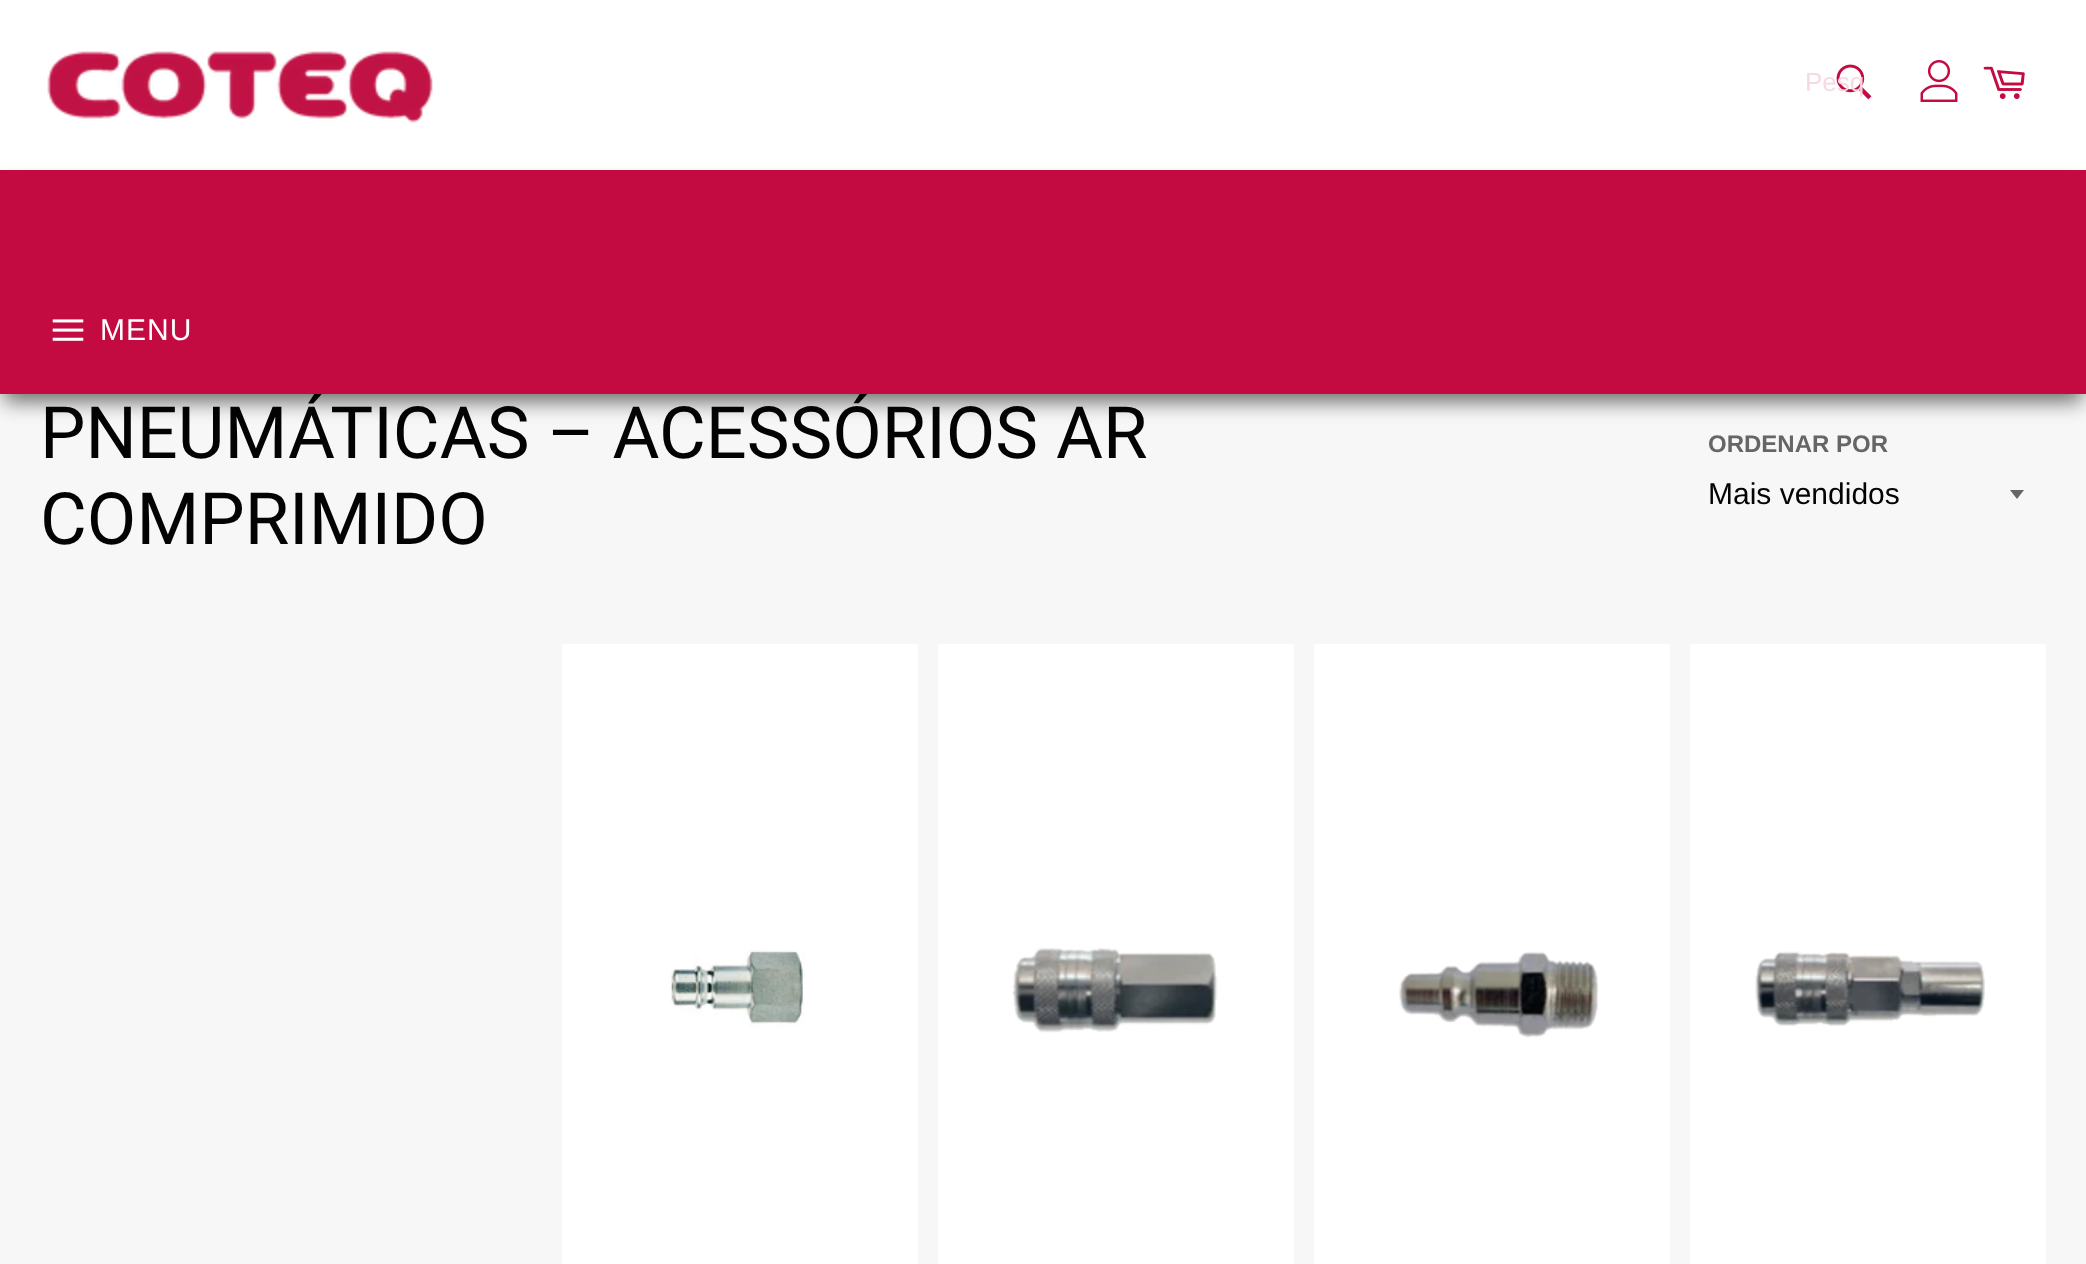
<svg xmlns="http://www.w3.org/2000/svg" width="2086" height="1264">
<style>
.a{font:26px Liberation Sans;fill:#f6dae2}
.b{font:72px Roboto;fill:#030303}
.c{font:30px Liberation Sans;letter-spacing:1px;fill:#fff}
.d{font:bold 24px Liberation Sans;fill:#666}
.e{font:30px Liberation Sans;fill:#030303}
</style>
<rect width="100%" height="100%" fill="#f7f7f7"/>
<path fill="#fff" d="M0 0h2086v170H0z"/>
<image href="1.png" x="47" y="51" width="386" height="72"/>
<image href="2.png" x="1836" y="64" width="36" height="36"/>
<image href="3.png" x="1920" y="60" width="38" height="42"/>
<image href="4.png" x="1983" y="66" width="42" height="33"/>
<path fill="#0000008c" filter="blur(10px)" d="M4 186h2078v216H4z"/>
<path fill="#666" d="M2010 490l7 9l7-9z"/>
<path fill="#fff" d="M562 644h356v620H562z"/>
<image href="6.png" x="669" y="949" width="136" height="78"/>
<path fill="#fff" d="M938 644h356v620H938z"/>
<image href="7.png" x="1012" y="947" width="206" height="86"/>
<path fill="#fff" d="M1314 644h356v620H1314z"/>
<image href="8.png" x="1399" y="951" width="200" height="87"/>
<path fill="#fff" d="M1690 644h356v620H1690z"/>
<image href="9.png" x="1755" y="951" width="230" height="75"/>
<text class="a" x="1805" y="91">Pesq</text>
<text class="b" x="40" y="458">PNEUMÁTICAS – ACESSÓRIOS AR</text>
<path fill="#c30a41" d="M0 170h2086v224H0z"/>
<image href="5.png" x="52" y="319" width="32" height="22"/>
<text class="c" x="100" y="340">MENU</text>
<text class="b" x="40" y="544">COMPRIMIDO</text>
<text class="d" x="1708" y="452">ORDENAR POR</text>
<text class="e" x="1708" y="504">Mais vendidos</text>
</svg>
